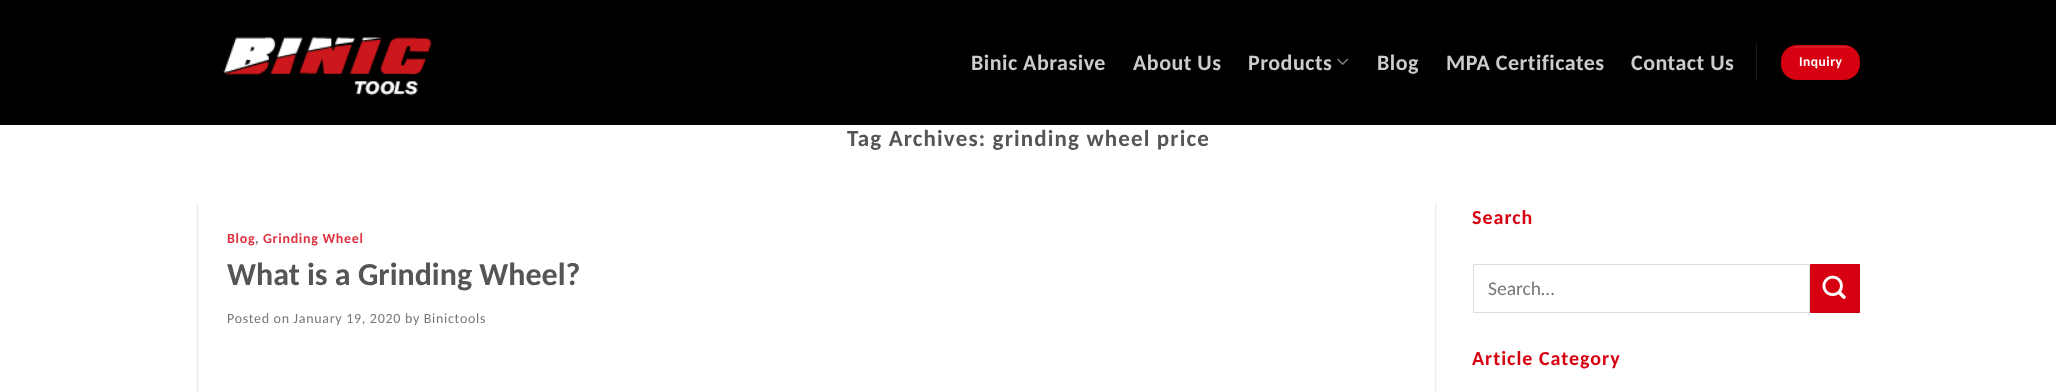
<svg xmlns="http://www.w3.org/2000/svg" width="2056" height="392">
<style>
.a{font:bold 22px Carlito;letter-spacing:0.5px;fill:#ccc}
.b{font:bold 13.5px Carlito;letter-spacing:0.5px;fill:#fff}
.c{font:bold 23px Carlito;letter-spacing:1.15px;fill:#555}
.d{font:bold 14px Carlito;letter-spacing:0.7px;fill:#df3340}
.e{font:bold 14px Carlito;letter-spacing:0.7px;fill:#777}
.f{font:bold 32px Carlito;fill:#555}
.g{font:14px Carlito;letter-spacing:0.7px;fill:#777}
.h{font:bold 20px Carlito;letter-spacing:1px;fill:#d70010}
.i{font:19.5px Carlito;fill:#777}
</style>
<defs>
<clipPath id="clip1"><path d="M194 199h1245v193h-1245zm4 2h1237v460h-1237z" clip-rule="evenodd"/></clipPath>
</defs>
<rect width="100%" height="100%" fill="#fff"/>
<path fill="#000" d="M0 0h2056v125H0z"/>
<image href="1.png" x="223" y="37" width="209" height="59"/>
<image href="2.png" x="1337" y="58" width="12" height="7"/>
<path fill="#1a1a1a" d="M1756 44h1v37H1756z"/>
<rect fill="#d70010" x="1781" y="45" width="79" height="35" rx="16"/>
<path fill="none" stroke="#0000000d" d="M1781.5 45.5h78v34H1781.5z"/>
<path fill="#db1a28" d="M1798 46c-3 0-5 1-7 2h60c-2-1-4-2-7-2z"/>
<g clip-path="url(#clip1)">
<path fill="#0000003d" filter="blur(1px)" d="M198 203h1237v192H198z"/>
</g>
<path fill="none" stroke="#ddd" d="M1473.5 264.5h336v48H1473.5z"/>
<path fill="#d70010" stroke="#cc000f" d="M1810.5 264.5h49v48H1810.5z"/>
<image href="3.png" x="1822" y="275" width="24" height="24"/>
<text class="a" x="971" y="70">Binic Abrasive</text>
<text class="a" x="1133" y="70">About Us</text>
<text class="a" x="1248" y="70">Products</text>
<text class="a" x="1377" y="70">Blog</text>
<text class="a" x="1446" y="70">MPA Certificates</text>
<text class="a" x="1631" y="70">Contact Us</text>
<text class="b" x="1799" y="66">Inquiry</text>
<text class="c" x="847" y="146">Tag Archives: grinding wheel price</text>
<text class="d" x="227" y="243">Blog</text>
<text class="e" x="255" y="243">,</text>
<text class="d" x="263" y="243">Grinding Wheel</text>
<text class="f" x="227" y="285">What is a Grinding Wheel?</text>
<text class="g" x="227" y="323">Posted on January 19, 2020 by Binictools</text>
<text class="h" x="1472" y="224">Search</text>
<text class="i" x="1488" y="295">Search…</text>
<text class="h" x="1472" y="365">Article Category</text>
</svg>
